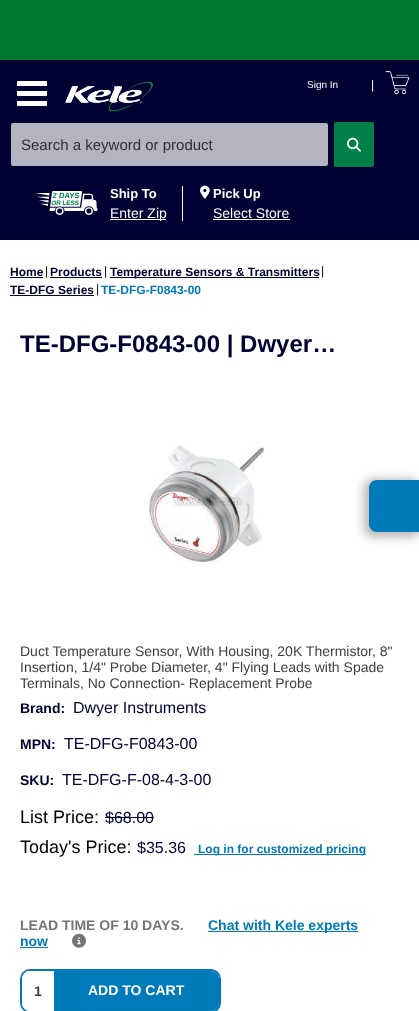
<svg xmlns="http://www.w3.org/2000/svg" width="419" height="1011">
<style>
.a{font:bold 11px Liberation Sans;fill:#fff}
.b{font:15px Liberation Sans;fill:#2d2d3c}
.c{font:10px Liberation Sans;fill:#fff}
.d{font:12px Liberation Sans;fill:#fff}
.e{font:bold 13px Liberation Sans;fill:#fff}
.f{font:14px Liberation Sans;fill:#fff}
.g{font:bold 12px Liberation Sans;fill:#003}
.h{font:12px Liberation Sans;fill:#000}
.i{font:bold 12px Liberation Sans;fill:#007ab8}
.j{font:bold 24px Liberation Sans;fill:#003}
.k{font:14px Liberation Sans;fill:#3d3e3d}
.l{font:bold 14px Liberation Sans;fill:#003}
.m{font:16px Liberation Sans;fill:#003}
.n{font:18px Liberation Sans;fill:#000}
.o{font:bold 14px Liberation Sans;fill:#757575}
.p{font:bold 14px Liberation Sans;fill:#007ab8}
.q{font:bold 14px Liberation Sans;fill:#3d3e3d}
.r{font:bold 14px Liberation Sans;fill:#fff}
</style>
<rect width="100%" height="100%" fill="#fff"/>
<path fill="#007a33" d="M0 0h419v60H0z"/>
<path fill="#003" d="M0 60h419v180H0z"/>
<image href="1.png" x="385" y="71" width="25" height="24"/>
<rect fill="#b3b3c2" stroke="#003" x="10.5" y="122.5" width="318" height="44" rx="2.5"/>
<rect fill="#008049" x="334" y="122" width="40" height="45" rx="2"/>
<image href="2.png" x="347" y="137" width="14" height="15"/>
<path fill="#fff" d="M17 81h30v5H17z"/>
<path fill="#fff" d="M17 91h30v5H17z"/>
<path fill="#fff" d="M17 101h30v5H17z"/>
<image href="3.png" x="65" y="81" width="88" height="31"/>
<image href="4.png" x="35" y="191" width="63" height="24"/>
<path fill="#fff" d="M182 186h1v35H182z"/>
<path fill="#fff" d="M110 219h56v1H110z"/>
<image href="5.png" x="200" y="185" width="10" height="14"/>
<path fill="#fff" d="M213 219h77v1H213z"/>
<path fill="#003" d="M10 277h33v1H10z"/>
<path fill="#003" d="M50 277h52v1H50z"/>
<path fill="#003" d="M110 277h209v1H110z"/>
<path fill="#003" d="M10 295h84v1H10z"/>
<image href="6.png" x="148" y="442" width="116" height="121"/>
<path fill="#003" d="M105 817h49v1H105z"/>
<path fill="#007ab8" d="M194 854h172v1H194z"/>
<path fill="#007ab8" d="M208 931h150v1H208z"/>
<path fill="#007ab8" d="M20 947h28v1H20z"/>
<image href="7.png" x="72" y="933" width="14" height="15"/>
<rect fill="none" stroke="#007ab8" stroke-width="2" x="21" y="970" width="199" height="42" rx="9"/>
<path fill="#fff" d="M30 971h24v40h-24c-4.5 0-8-3.5-8-8v-24c0-4.5 3.5-8 8-8z"/>
<path fill="#007ab8" d="M54 971h157c4.5 0 8 3.5 8 8v24c0 4.5-3.5 8-8 8h-157z"/>
<rect fill="#00000040" filter="blur(4px)" x="363" y="478" width="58" height="60" rx="12"/>
<path fill="#007ab8" d="M377 480h42v52h-42c-4.5 0-8-3.5-8-8v-36c0-4.5 3.5-8 8-8z"/>
<text class="a" x="396" y="74">__</text>
<text class="b" x="21" y="150">Search a keyword or product</text>
<text class="c" x="307" y="88">Sign In</text>
<text class="d" x="371" y="89">|</text>
<text class="e" x="110" y="198">Ship To</text>
<text class="f" x="110" y="218">Enter Zip</text>
<text class="e" x="213" y="198">Pick Up</text>
<text class="f" x="213" y="218">Select Store</text>
<text class="g" x="10" y="276">Home</text>
<text class="h" x="45" y="275">|</text>
<text class="g" x="50" y="276">Products</text>
<text class="h" x="104" y="275">|</text>
<text class="g" x="110" y="276">Temperature Sensors &amp; Transmitters</text>
<text class="h" x="321" y="275">|</text>
<text class="g" x="10" y="294">TE-DFG Series</text>
<text class="h" x="96" y="293">|</text>
<text class="i" x="101" y="294">TE-DFG-F0843-00</text>
<text class="j" x="20" y="352">TE-DFG-F0843-00 | Dwyer…</text>
<text class="k" x="20" y="656">Duct Temperature Sensor, With Housing, 20K Thermistor, 8"</text>
<text class="k" x="20" y="672">Insertion, 1/4" Probe Diameter, 4" Flying Leads with Spade</text>
<text class="k" x="20" y="688">Terminals, No Connection- Replacement Probe</text>
<text class="l" x="20" y="713">Brand:</text>
<text class="m" x="73" y="713">Dwyer Instruments</text>
<text class="l" x="20" y="749">MPN:</text>
<text class="m" x="64" y="749">TE-DFG-F0843-00</text>
<text class="l" x="20" y="785">SKU:</text>
<text class="m" x="62" y="785">TE-DFG-F-08-4-3-00</text>
<text class="n" x="20" y="823">List Price:</text>
<text class="m" x="105" y="823">$68.00</text>
<text class="n" x="20" y="853">Today's Price:</text>
<text class="m" x="137" y="853">$35.36</text>
<text class="i" x="198" y="853">Log in for customized pricing</text>
<text class="o" x="20" y="930">LEAD TIME OF 10 DAYS.</text>
<text class="p" x="208" y="930">Chat with Kele experts</text>
<text class="p" x="20" y="946">now</text>
<text class="q" x="34" y="996">1</text>
<text class="r" x="88" y="995">ADD TO CART</text>
</svg>
